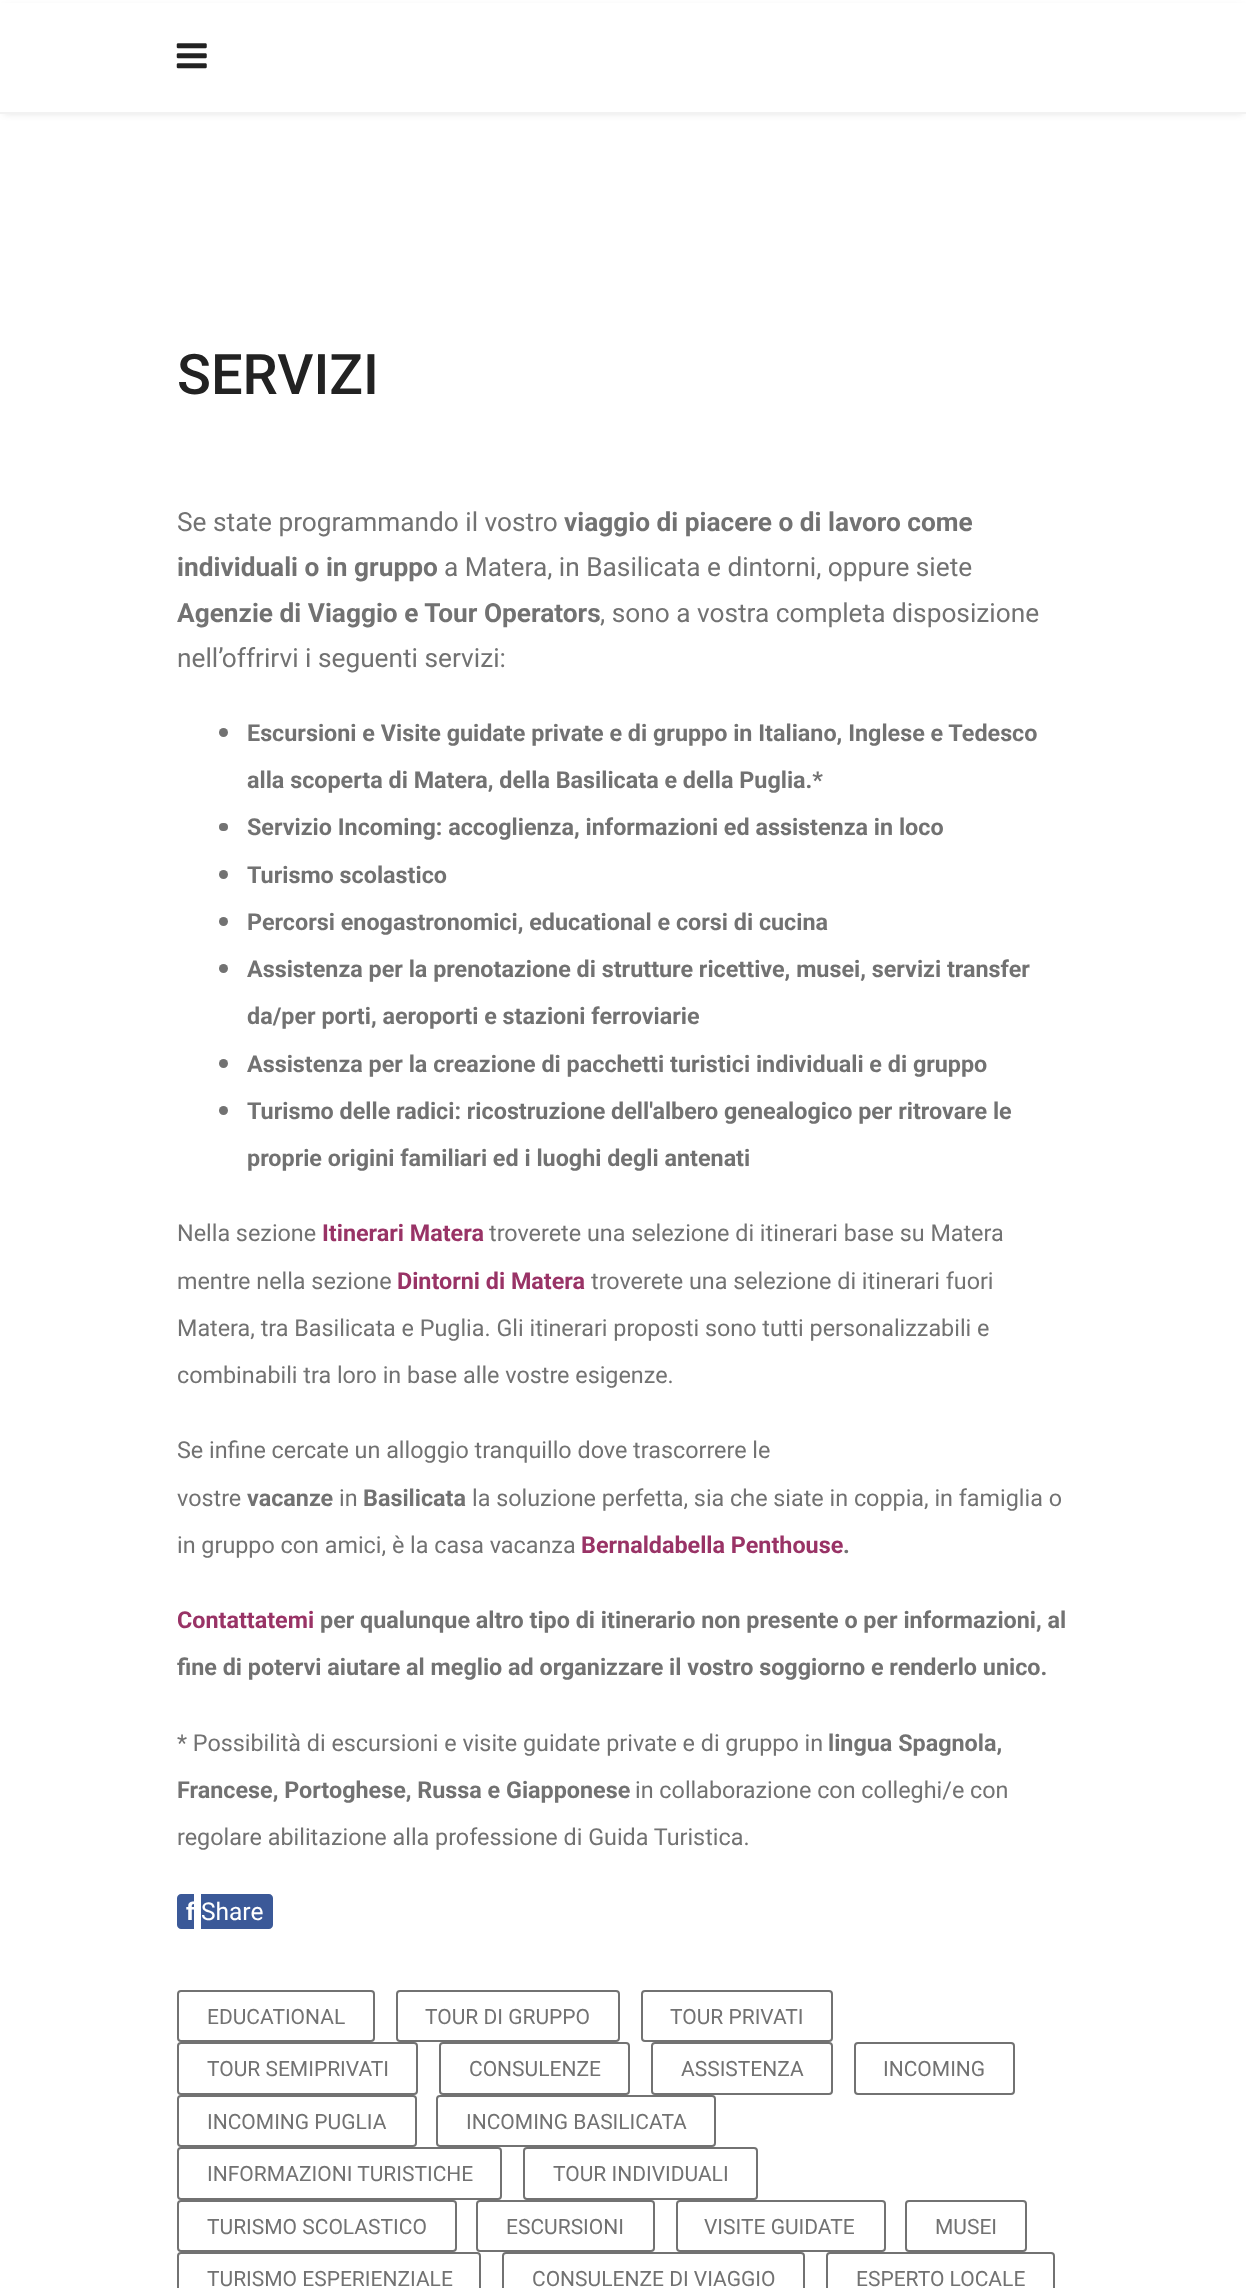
<svg xmlns="http://www.w3.org/2000/svg" width="1246" height="2288">
<style>
.a{font:500 56px Roboto;fill:#222}
.b{font:26.25px Roboto;fill:#727272}
.c{font:bold 26.25px Roboto;fill:#727272}
.d{font:bold 23.35px Roboto;fill:#727272}
.e{font:23.35px Roboto;fill:#727272}
.f{font:bold 23.35px Roboto;fill:#936}
.g{font:bold 24.5px Roboto;fill:#fff}
.h{font:24.5px Roboto;fill:#fff}
.i{font:21px Roboto;fill:#727272}
</style>
<rect width="100%" height="100%" fill="#fff"/>
<path fill="#0000001a" filter="blur(3.5px)" d="M4 7h1239v107H4z"/>
<path fill="#fff" d="M0 3h1246v109H0z"/>
<path fill="#f2f2f2" d="M0 112h1246v2H0z"/>
<image href="1.png" x="176" y="43" width="31" height="26"/>
<circle fill="#727272" cx="223.5" cy="732.5" r="4.5"/>
<rect fill="#727272" x="219" y="823" width="9" height="8" rx="4"/>
<circle fill="#727272" cx="223.5" cy="874.5" r="4.5"/>
<circle fill="#727272" cx="223.5" cy="921.5" r="4.5"/>
<circle fill="#727272" cx="223.5" cy="968.5" r="4.5"/>
<circle fill="#727272" cx="223.5" cy="1063.5" r="4.5"/>
<circle fill="#727272" cx="223.5" cy="1110.5" r="4.5"/>
<path fill="#3b5998" d="M181 1894h13v35h-13c-2 0-4-2-4-4v-27c0-2 2-4 4-4z"/>
<path fill="#3b5998" d="M201 1894h68c2 0 4 2 4 4v27c0 2-2 4-4 4h-68z"/>
<rect fill="none" stroke="#727272" stroke-width="2" x="178" y="1991" width="196" height="50" rx="3"/>
<rect fill="none" stroke="#727272" stroke-width="2" x="397" y="1991" width="222" height="50" rx="3"/>
<rect fill="none" stroke="#727272" stroke-width="2" x="642" y="1991" width="190" height="50" rx="3"/>
<rect fill="none" stroke="#727272" stroke-width="2" x="178" y="2043" width="239" height="51" rx="3"/>
<rect fill="none" stroke="#727272" stroke-width="2" x="440" y="2043" width="189" height="51" rx="3"/>
<rect fill="none" stroke="#727272" stroke-width="2" x="652" y="2043" width="180" height="51" rx="3"/>
<rect fill="none" stroke="#727272" stroke-width="2" x="855" y="2043" width="159" height="51" rx="3"/>
<rect fill="none" stroke="#727272" stroke-width="2" x="178" y="2096" width="238" height="50" rx="3"/>
<rect fill="none" stroke="#727272" stroke-width="2" x="437" y="2096" width="278" height="50" rx="3"/>
<rect fill="none" stroke="#727272" stroke-width="2" x="178" y="2148" width="323" height="51" rx="3"/>
<rect fill="none" stroke="#727272" stroke-width="2" x="524" y="2148" width="233" height="51" rx="3"/>
<rect fill="none" stroke="#727272" stroke-width="2" x="178" y="2201" width="278" height="50" rx="3"/>
<rect fill="none" stroke="#727272" stroke-width="2" x="477" y="2201" width="177" height="50" rx="3"/>
<rect fill="none" stroke="#727272" stroke-width="2" x="677" y="2201" width="208" height="50" rx="3"/>
<rect fill="none" stroke="#727272" stroke-width="2" x="906" y="2201" width="120" height="50" rx="3"/>
<rect fill="none" stroke="#727272" stroke-width="2" x="178" y="2253" width="302" height="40" rx="3"/>
<rect fill="none" stroke="#727272" stroke-width="2" x="503" y="2253" width="301" height="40" rx="3"/>
<rect fill="none" stroke="#727272" stroke-width="2" x="827" y="2253" width="227" height="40" rx="3"/>
<text class="a" x="177" y="394">SERVIZI</text>
<text class="b" x="177" y="531">Se state programmando il vostro</text>
<text class="c" x="564" y="531">viaggio di piacere o di lavoro come</text>
<text class="c" x="177" y="576">individuali o in gruppo</text>
<text class="b" x="444" y="576">a Matera, in Basilicata e dintorni, oppure siete</text>
<text class="c" x="177" y="622">Agenzie di Viaggio e Tour Operators</text>
<text class="b" x="600" y="622">, sono a vostra completa disposizione</text>
<text class="b" x="177" y="667">nell’offrirvi i seguenti servizi:</text>
<text class="d" x="247" y="741">Escursioni e Visite guidate private e di gruppo in Italiano, Inglese e Tedesco</text>
<text class="d" x="247" y="788">alla scoperta di Matera, della Basilicata e della Puglia.*</text>
<text class="d" x="247" y="835">Servizio Incoming: accoglienza, informazioni ed assistenza in loco</text>
<text class="d" x="247" y="883">Turismo scolastico</text>
<text class="d" x="247" y="930">Percorsi enogastronomici, educational e corsi di cucina</text>
<text class="d" x="247" y="977">Assistenza per la prenotazione di strutture ricettive, musei, servizi transfer</text>
<text class="d" x="247" y="1024">da/per porti, aeroporti e stazioni ferroviarie</text>
<text class="d" x="247" y="1072">Assistenza per la creazione di pacchetti turistici individuali e di gruppo</text>
<text class="d" x="247" y="1119">Turismo delle radici: ricostruzione dell'albero genealogico per ritrovare le</text>
<text class="d" x="247" y="1166">proprie origini familiari ed i luoghi degli antenati</text>
<text class="e" x="177" y="1241">Nella sezione</text>
<text class="f" x="322" y="1241">Itinerari Matera</text>
<text class="e" x="489" y="1241">troverete una selezione di itinerari base su Matera</text>
<text class="e" x="177" y="1289">mentre nella sezione</text>
<text class="f" x="397" y="1289">Dintorni di Matera</text>
<text class="e" x="591" y="1289">troverete una selezione di itinerari fuori</text>
<text class="e" x="177" y="1336">Matera, tra Basilicata e Puglia. Gli itinerari proposti sono tutti personalizzabili e</text>
<text class="e" x="177" y="1383">combinabili tra loro in base alle vostre esigenze.</text>
<text class="e" x="177" y="1458">Se infine cercate un alloggio tranquillo dove trascorrere le</text>
<text class="e" x="177" y="1506">vostre</text>
<text class="d" x="247" y="1506">vacanze</text>
<text class="e" x="339" y="1506">in</text>
<text class="d" x="363" y="1506">Basilicata</text>
<text class="e" x="472" y="1506">la soluzione perfetta, sia che siate in coppia, in famiglia o</text>
<text class="e" x="177" y="1553">in gruppo con amici, è la casa vacanza</text>
<text class="f" x="581" y="1553">Bernaldabella Penthouse</text>
<text class="d" x="843" y="1553">.</text>
<text class="f" x="177" y="1628">Contattatemi</text>
<text class="d" x="320" y="1628">per qualunque altro tipo di itinerario non presente o per informazioni, al</text>
<text class="d" x="177" y="1675">fine di potervi aiutare al meglio ad organizzare il vostro soggiorno e renderlo unico.</text>
<text class="e" x="177" y="1751">* Possibilità di escursioni e visite guidate private e di gruppo in</text>
<text class="d" x="828" y="1751">lingua Spagnola,</text>
<text class="d" x="177" y="1798">Francese, Portoghese, Russa e Giapponese</text>
<text class="e" x="635" y="1798">in collaborazione con colleghi/e con</text>
<text class="e" x="177" y="1845">regolare abilitazione alla professione di Guida Turistica.</text>
<text class="g" x="186" y="1920">f</text>
<text class="h" x="201" y="1920">Share</text>
<text class="i" x="207" y="2024">EDUCATIONAL</text>
<text class="i" x="425" y="2024">TOUR DI GRUPPO</text>
<text class="i" x="670" y="2024">TOUR PRIVATI</text>
<text class="i" x="207" y="2076">TOUR SEMIPRIVATI</text>
<text class="i" x="469" y="2076">CONSULENZE</text>
<text class="i" x="681" y="2076">ASSISTENZA</text>
<text class="i" x="883" y="2076">INCOMING</text>
<text class="i" x="207" y="2129">INCOMING PUGLIA</text>
<text class="i" x="466" y="2129">INCOMING BASILICATA</text>
<text class="i" x="207" y="2181">INFORMAZIONI TURISTICHE</text>
<text class="i" x="553" y="2181">TOUR INDIVIDUALI</text>
<text class="i" x="207" y="2234">TURISMO SCOLASTICO</text>
<text class="i" x="506" y="2234">ESCURSIONI</text>
<text class="i" x="704" y="2234">VISITE GUIDATE</text>
<text class="i" x="935" y="2234">MUSEI</text>
<text class="i" x="207" y="2286">TURISMO ESPERIENZIALE</text>
<text class="i" x="532" y="2286">CONSULENZE DI VIAGGIO</text>
<text class="i" x="856" y="2286">ESPERTO LOCALE</text>
</svg>
